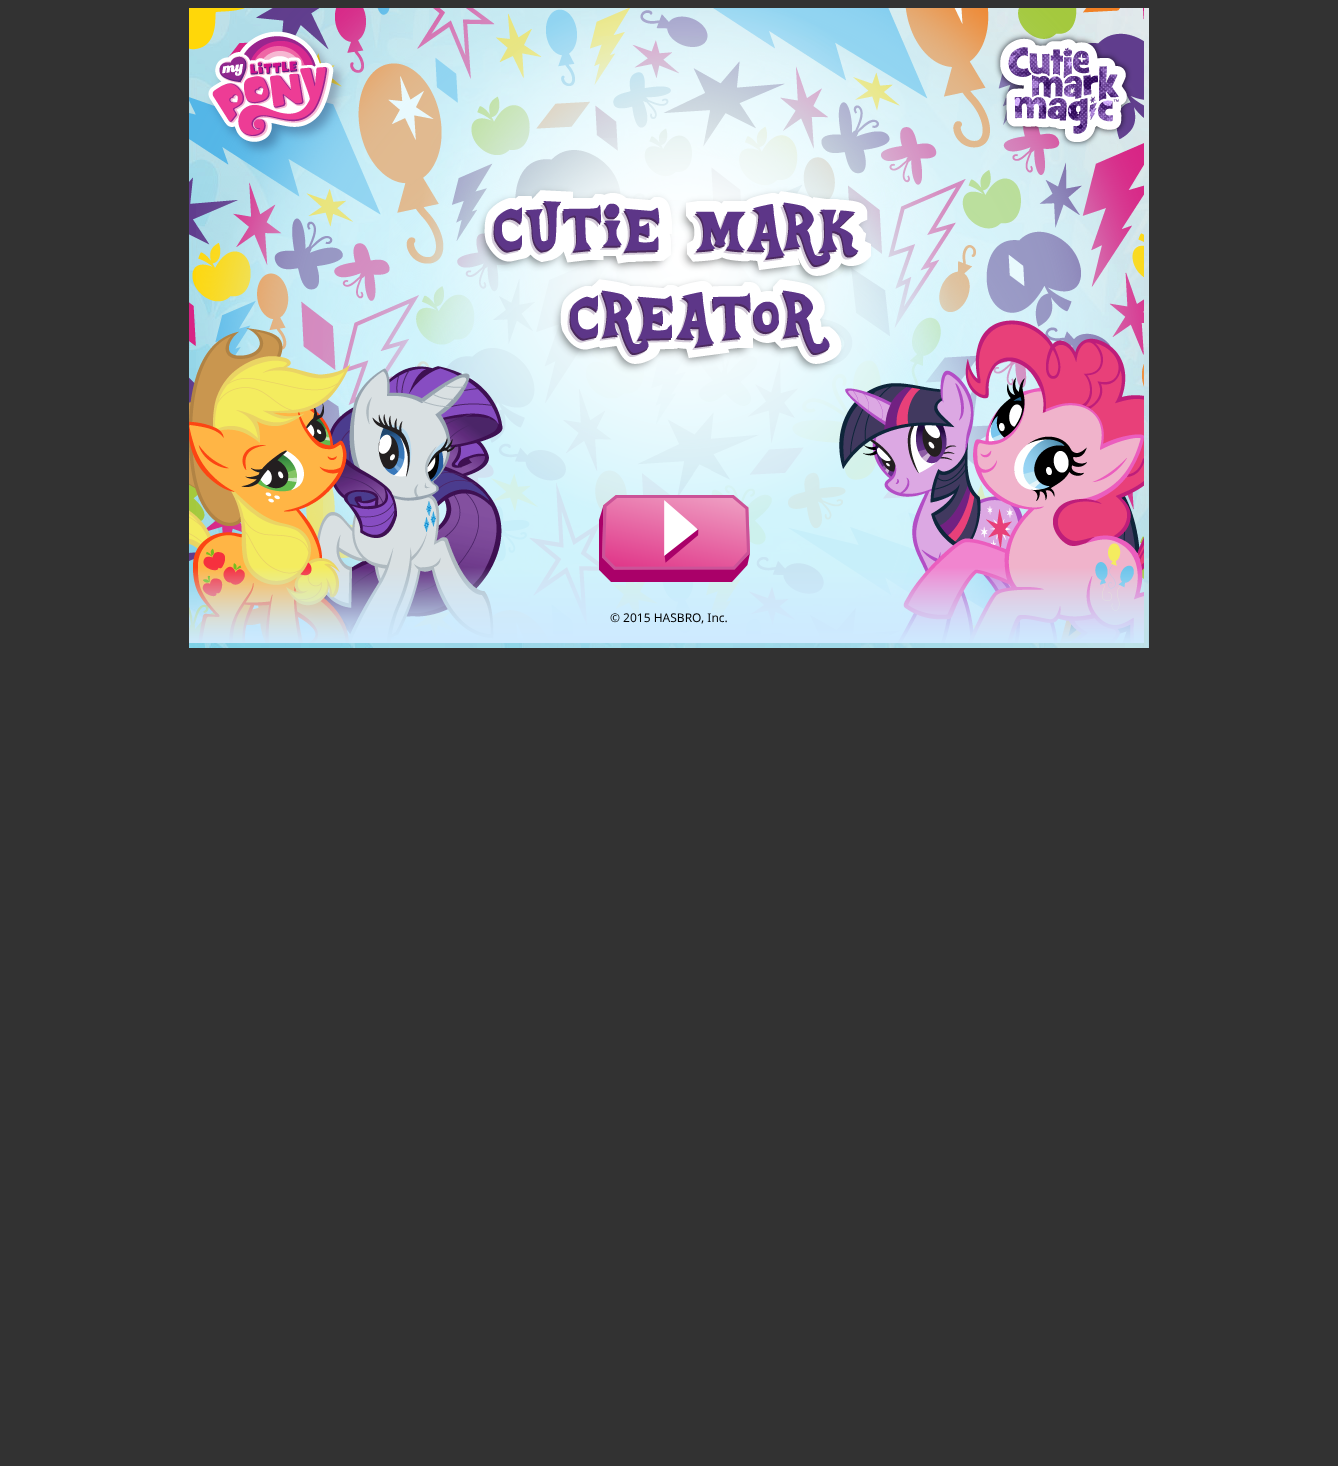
<svg xmlns="http://www.w3.org/2000/svg" width="1338" height="1466">
<style>
.a{font:12px Noto Sans;fill:#000}
</style>
<rect width="100%" height="100%" fill="#323232"/>
<image href="1.png" x="189" y="8" width="960" height="640"/>
<image href="2.png" x="189" y="8" width="955" height="635"/>
<image href="3.png" x="599" y="495" width="151" height="87"/>
<text class="a" x="610" y="622">© 2015 HASBRO, Inc.</text>
</svg>
